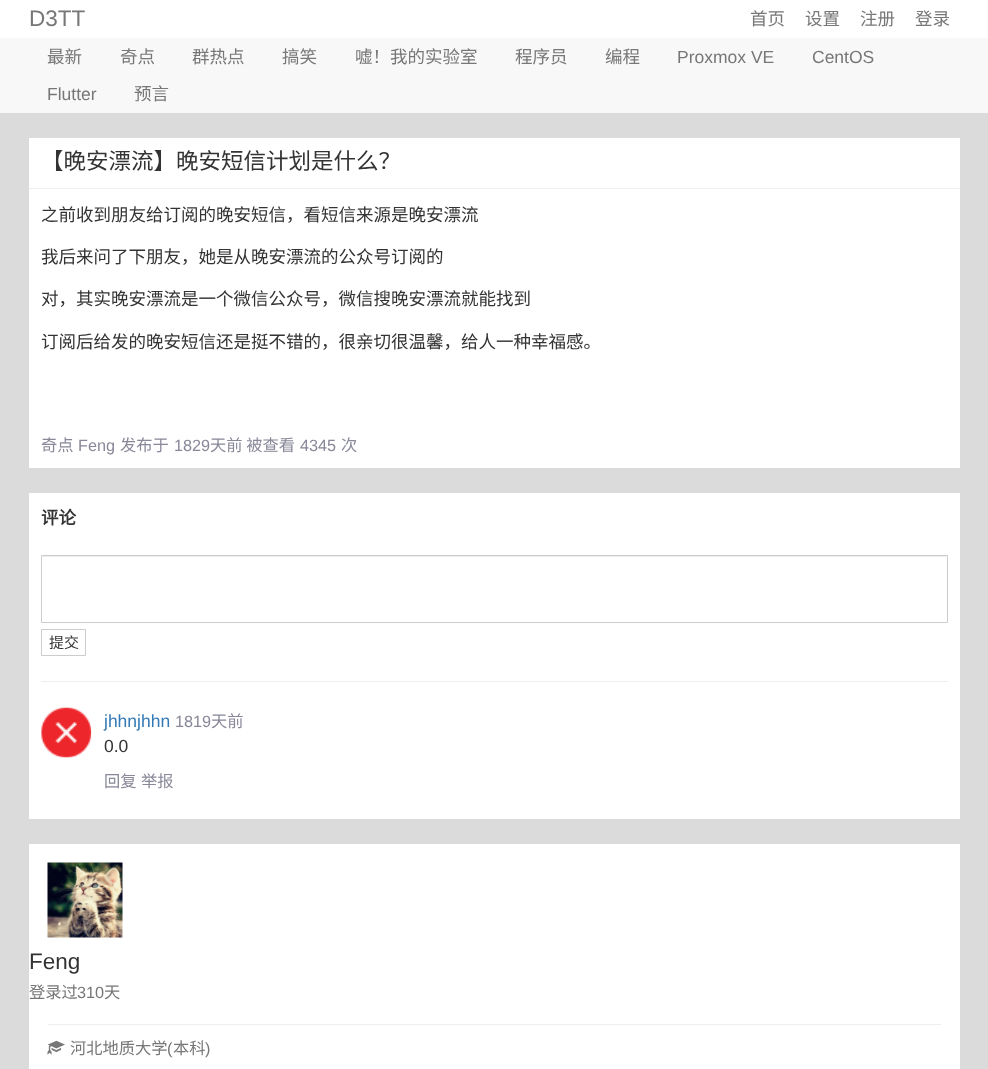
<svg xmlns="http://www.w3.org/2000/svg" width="988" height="1069">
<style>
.a{font:22.5px Liberation Sans;fill:#777}
.b{font:17.5px Noto Sans CJK SC;fill:#777}
.c{font:17.5px Liberation Sans;fill:#777}
.d{font:22.5px Noto Sans CJK SC;fill:#333}
.e{font:17.5px Noto Sans CJK SC;fill:#333}
.f{font:16.25px Noto Sans CJK SC;fill:#889}
.g{font:16.25px Liberation Sans;fill:#889}
.h{font:bold 17.5px Noto Sans CJK SC;fill:#333}
.i{font:15px Noto Sans CJK SC;fill:#333}
.j{font:17.5px Liberation Sans;fill:#337ab7}
.k{font:17.5px Liberation Sans;fill:#333}
.l{font:22.5px Liberation Sans;fill:#333}
.m{font:16.25px Noto Sans CJK SC;fill:#777}
.n{font:16.25px Liberation Sans;fill:#777}
</style>
<rect width="100%" height="100%" fill="#dcdbdb"/>
<path fill="#fff" d="M0 0h988v38H0z"/>
<path fill="#f8f8f8" d="M0 38h988v75H0z"/>
<path fill="#fff" d="M29 138h931v330H29z"/>
<path fill="#edeff0" d="M29 188h931v1H29z"/>
<path fill="#fff" d="M29 493h931v326H29z"/>
<path fill="#ececec" d="M43 556h903v1H43z"/>
<path fill="none" stroke="#ccc" d="M41.5 555.5h906v67H41.5z"/>
<path fill="none" stroke="#ccc" d="M41.5 629.5h44v26H41.5z"/>
<path fill="#eee" d="M41 681h907v1H41z"/>
<image href="1.png" x="41" y="707" width="51" height="51"/>
<path fill="#fff" d="M29 844h931v225H29z"/>
<image href="2.png" x="47" y="862" width="76" height="76"/>
<path fill="#eee" d="M48 1024h893v1H48z"/>
<image href="3.png" x="47" y="1040" width="18" height="15"/>
<text class="a" x="29" y="26">D3TT</text>
<text class="b" x="750" y="25">首页</text>
<text class="b" x="805" y="25">设置</text>
<text class="b" x="860" y="25">注册</text>
<text class="b" x="915" y="25">登录</text>
<text class="b" x="47" y="63">最新</text>
<text class="b" x="120" y="63">奇点</text>
<text class="b" x="192" y="63">群热点</text>
<text class="b" x="282" y="63">搞笑</text>
<text class="b" x="355" y="63">嘘！我的实验室</text>
<text class="b" x="515" y="63">程序员</text>
<text class="b" x="605" y="63">编程</text>
<text class="c" x="677" y="63">Proxmox VE</text>
<text class="c" x="812" y="63">CentOS</text>
<text class="c" x="47" y="100">Flutter</text>
<text class="b" x="134" y="100">预言</text>
<text class="d" x="41" y="169">【晚安漂流】晚安短信计划是什么？</text>
<text class="e" x="41" y="221">之前收到朋友给订阅的晚安短信，看短信来源是晚安漂流</text>
<text class="e" x="41" y="263">我后来问了下朋友，她是从晚安漂流的公众号订阅的</text>
<text class="e" x="41" y="305">对，其实晚安漂流是一个微信公众号，微信搜晚安漂流就能找到</text>
<text class="e" x="41" y="348">订阅后给发的晚安短信还是挺不错的，很亲切很温馨，给人一种幸福感。</text>
<text class="f" x="41" y="451">奇点</text>
<text class="g" x="78" y="451">Feng</text>
<text class="f" x="120" y="451">发布于</text>
<text class="g" x="174" y="451">1829</text>
<text class="f" x="210" y="451">天前 被查看</text>
<text class="g" x="300" y="451">4345</text>
<text class="f" x="341" y="451">次</text>
<text class="h" x="41" y="524">评论</text>
<text class="i" x="49" y="648">提交</text>
<text class="j" x="104" y="727">jhhnjhhn</text>
<text class="g" x="175" y="727">1819</text>
<text class="f" x="211" y="727">天前</text>
<text class="k" x="104" y="752">0.0</text>
<text class="f" x="104" y="787">回复</text>
<text class="f" x="141" y="787">举报</text>
<text class="l" x="29" y="969">Feng</text>
<text class="m" x="29" y="998">登录过</text>
<text class="n" x="77" y="998">310</text>
<text class="m" x="104" y="998">天</text>
<text class="m" x="70" y="1054">河北地质大学</text>
<text class="n" x="167" y="1054">(</text>
<text class="m" x="173" y="1054">本科</text>
<text class="n" x="205" y="1054">)</text>
</svg>
